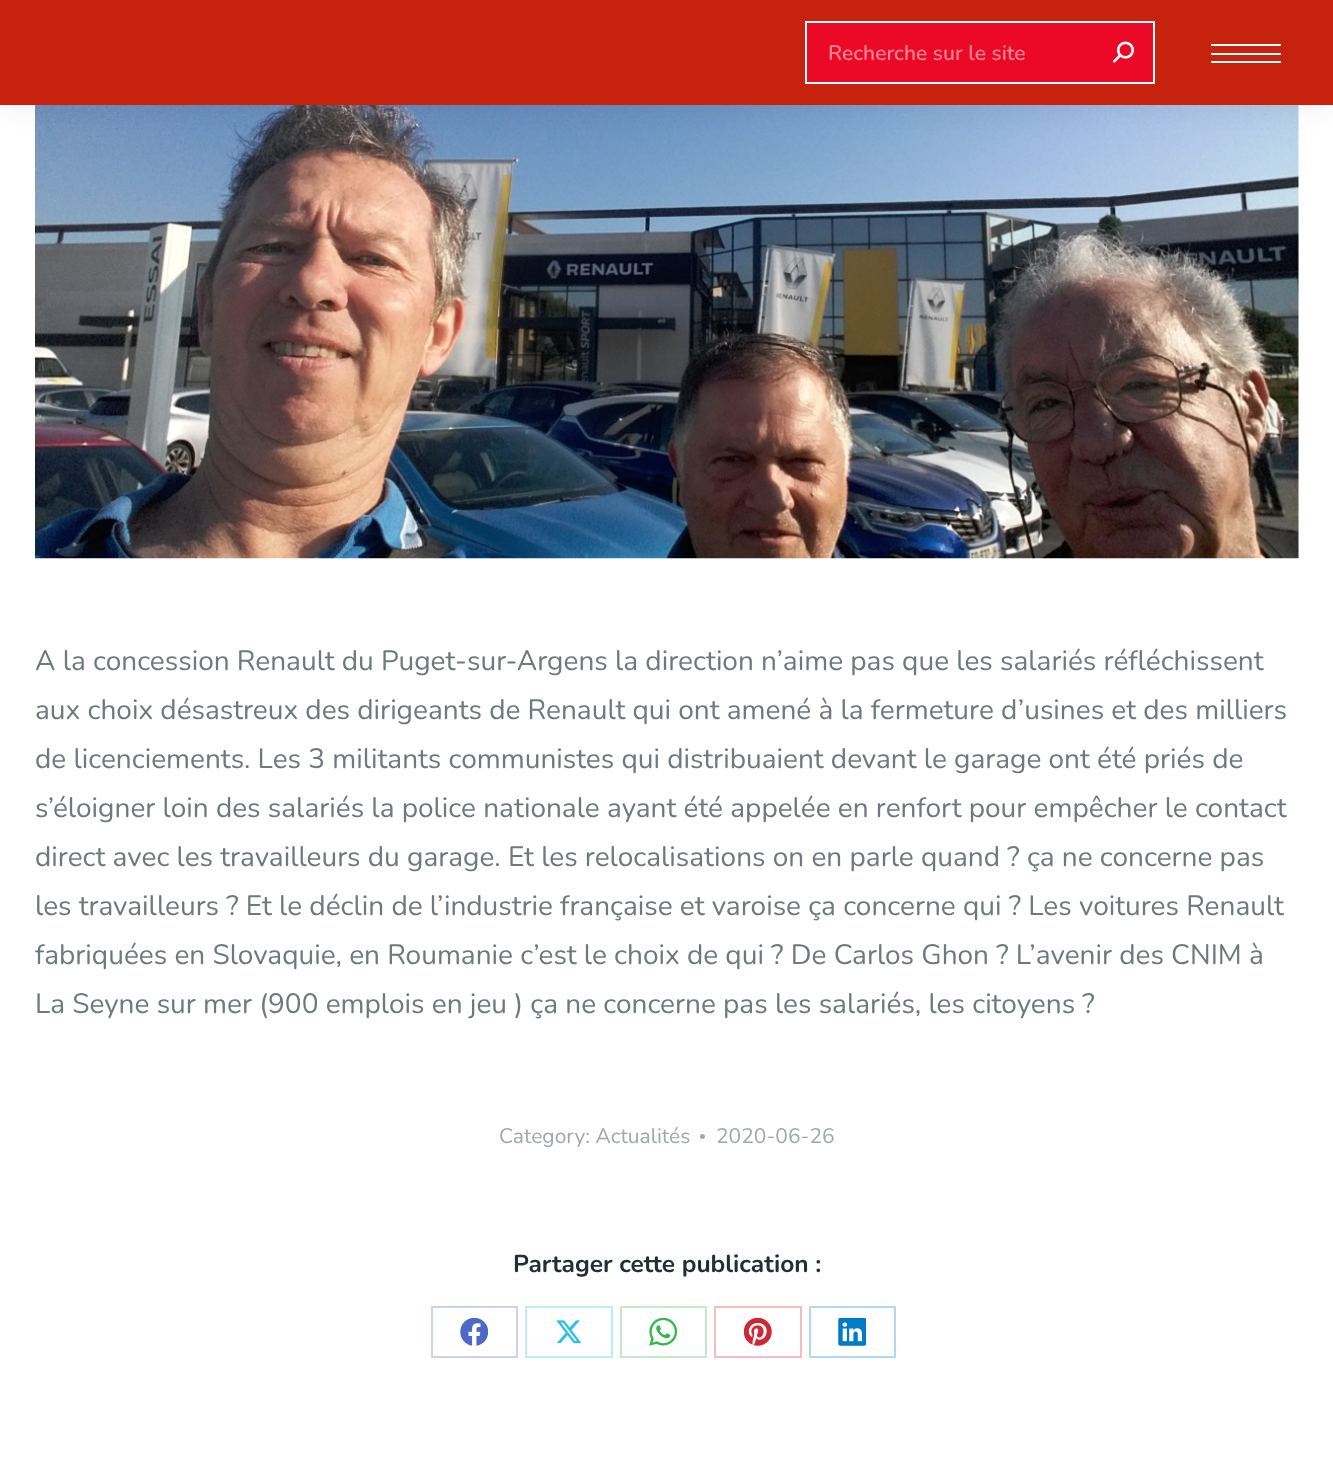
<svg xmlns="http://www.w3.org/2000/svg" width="1333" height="1478">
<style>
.a{font:600 21px Nunito;fill:#f68493}
.b{font:28px Nunito;fill:#71787c}
.c{font:21px Nunito;fill:#a1a7ab}
.d{font:bold 24.5px Nunito;fill:#242e35}
</style>
<rect width="100%" height="100%" fill="#fff"/>
<image href="2.png" x="35" y="105" width="1264" height="454"/>
<path fill="#00000012" filter="blur(13px)" d="M-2 -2h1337v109H-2z"/>
<path fill="#c7220e" d="M0 0h1333v105H0z"/>
<path fill="#ec0927" stroke="#fff" stroke-width="2" d="M806 22h348v61H806z"/>
<image href="1.png" x="1113" y="41" width="21" height="22"/>
<path fill="#fff" d="M1211 44h70v2H1211z"/>
<path fill="#fff" d="M1211 53h70v2H1211z"/>
<path fill="#fff" d="M1211 61h70v2H1211z"/>
<circle fill="#a1a7ab" cx="702.5" cy="1136.5" r="2.5"/>
<path fill="none" stroke="#c9d2ee" stroke-width="2" d="M432 1307h85v50H432z"/>
<image href="3.png" x="460" y="1318" width="28" height="28"/>
<path fill="none" stroke="#bfecf9" stroke-width="2" d="M526 1307h86v50H526z"/>
<image href="4.png" x="556" y="1320" width="26" height="24"/>
<path fill="none" stroke="#c3e9ca" stroke-width="2" d="M621 1307h85v50H621z"/>
<image href="5.png" x="649" y="1318" width="28" height="28"/>
<path fill="none" stroke="#f1bfc2" stroke-width="2" d="M715 1307h86v50H715z"/>
<image href="6.png" x="744" y="1318" width="28" height="28"/>
<path fill="none" stroke="#b3d7ee" stroke-width="2" d="M810 1307h85v50H810z"/>
<image href="7.png" x="838" y="1318" width="28" height="28"/>
<text class="a" x="828" y="60">Recherche sur le site</text>
<text class="b" x="35" y="670">A la concession Renault du Puget-sur-Argens la direction n’aime pas que les salariés réfléchissent</text>
<text class="b" x="35" y="719">aux choix désastreux des dirigeants de Renault qui ont amené à la fermeture d’usines et des milliers</text>
<text class="b" x="35" y="768">de licenciements. Les 3 militants communistes qui distribuaient devant le garage ont été priés de</text>
<text class="b" x="35" y="817">s’éloigner loin des salariés la police nationale ayant été appelée en renfort pour empêcher le contact</text>
<text class="b" x="35" y="866">direct avec les travailleurs du garage. Et les relocalisations on en parle quand ? ça ne concerne pas</text>
<text class="b" x="35" y="915">les travailleurs ? Et le déclin de l’industrie française et varoise ça concerne qui ? Les voitures Renault</text>
<text class="b" x="35" y="964">fabriquées en Slovaquie, en Roumanie c’est le choix de qui ? De Carlos Ghon ? L’avenir des CNIM à</text>
<text class="b" x="35" y="1013">La Seyne sur mer (900 emplois en jeu ) ça ne concerne pas les salariés, les citoyens ?</text>
<text class="c" x="499" y="1143">Category: Actualités</text>
<text class="c" x="716" y="1143">2020-06-26</text>
<text class="d" x="513" y="1272">Partager cette publication :</text>
</svg>
